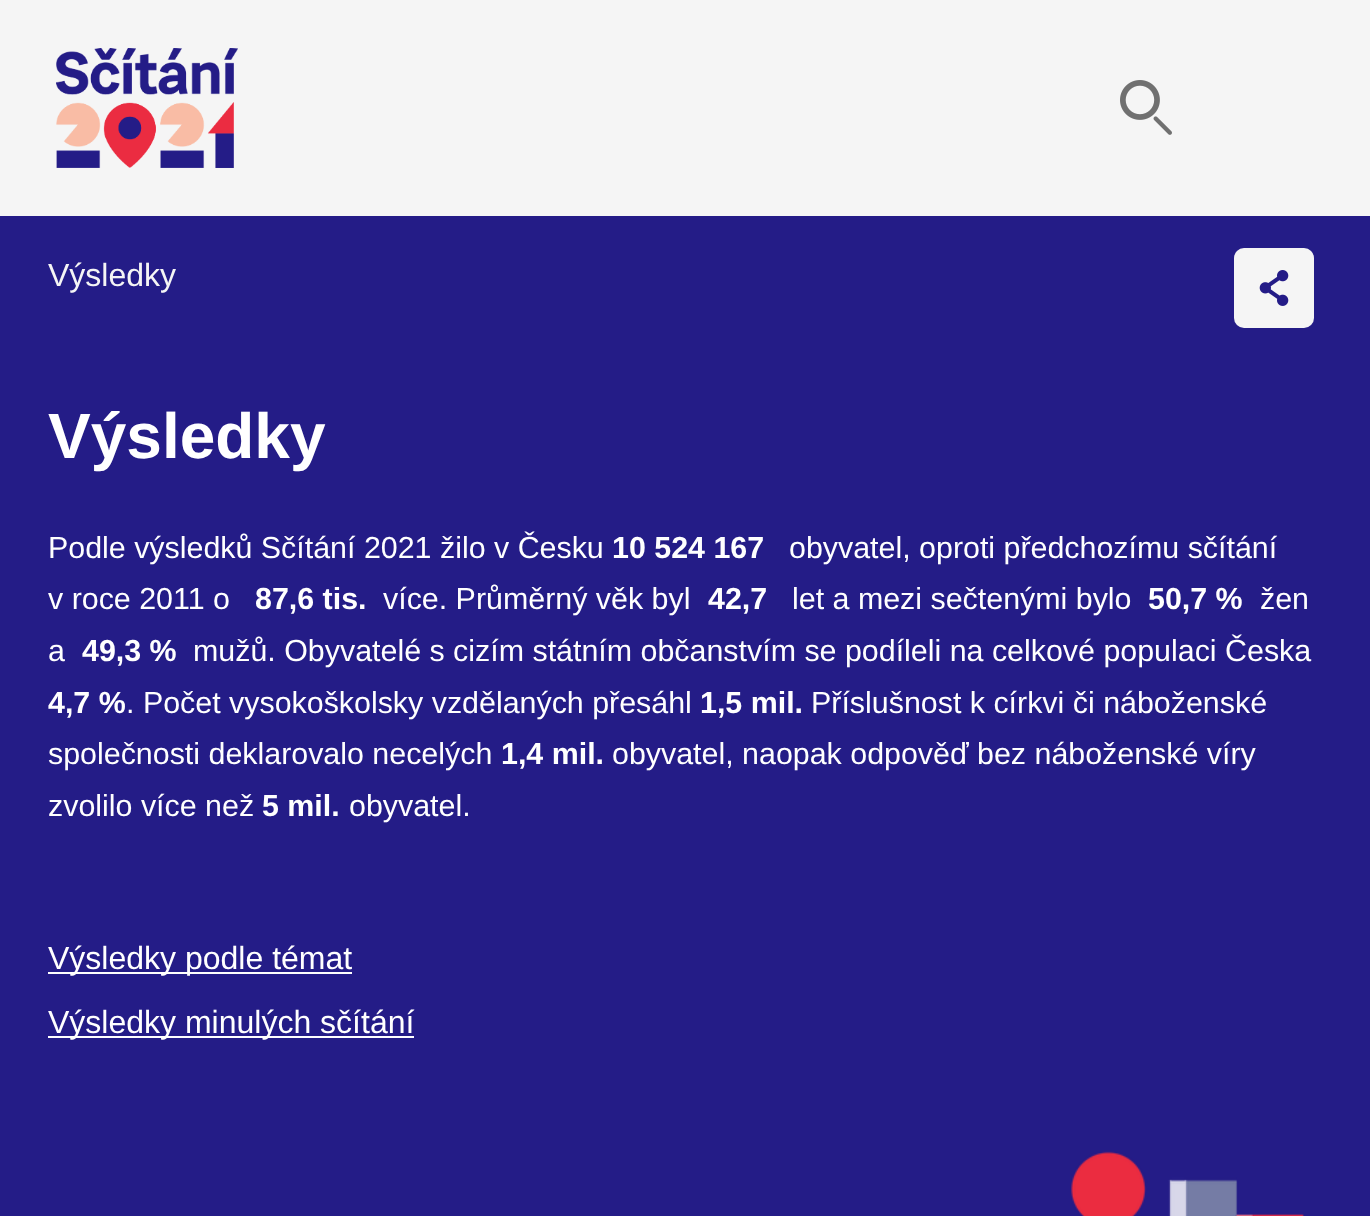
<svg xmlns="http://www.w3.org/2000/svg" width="1370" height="1216">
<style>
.a{font:32px Liberation Sans;fill:#f5f5f5}
.b{font:bold 64px Liberation Sans;fill:#fff}
.c{font:30.4px Liberation Sans;fill:#fff}
.d{font:bold 30.4px Liberation Sans;fill:#fff}
.e{font:32px Liberation Sans;fill:#fff}
</style>
<rect width="100%" height="100%" fill="#f5f5f5"/>
<image href="1.png" x="56" y="48" width="182" height="120"/>
<image href="2.png" x="1120" y="80" width="52" height="55"/>
<path fill="#241c87" d="M0 216h1370v1000H0z"/>
<rect fill="#f5f5f5" x="1234" y="248" width="80" height="80" rx="10"/>
<image href="3.png" x="1259" y="270" width="30" height="36"/>
<path fill="#fff" d="M48 972h304v2H48z"/>
<path fill="#fff" d="M48 1036h366v2H48z"/>
<image href="4.png" x="1071" y="1151" width="233" height="65"/>
<text class="a" x="48" y="286">Výsledky</text>
<text class="b" x="48" y="458">Výsledky</text>
<text class="c" x="48" y="558">Podle výsledků Sčítání 2021 žilo v Česku</text>
<text class="d" x="612" y="558">10 524 167</text>
<text class="c" x="789" y="558">obyvatel, oproti předchozímu sčítání</text>
<text class="c" x="48" y="609">v roce 2011 o</text>
<text class="d" x="255" y="609">87,6 tis.</text>
<text class="c" x="383" y="609">více. Průměrný věk byl</text>
<text class="d" x="708" y="609">42,7</text>
<text class="c" x="792" y="609">let a mezi sečtenými bylo</text>
<text class="d" x="1148" y="609">50,7 %</text>
<text class="c" x="1260" y="609">žen</text>
<text class="c" x="48" y="661">a</text>
<text class="d" x="82" y="661">49,3 %</text>
<text class="c" x="193" y="661">mužů. Obyvatelé s cizím státním občanstvím se podíleli na celkové populaci Česka</text>
<text class="d" x="48" y="713">4,7 %</text>
<text class="c" x="126" y="713">. Počet vysokoškolsky vzdělaných přesáhl</text>
<text class="d" x="700" y="713">1,5 mil.</text>
<text class="c" x="811" y="713">Příslušnost k církvi či náboženské</text>
<text class="c" x="48" y="764">společnosti deklarovalo necelých</text>
<text class="d" x="501" y="764">1,4 mil.</text>
<text class="c" x="612" y="764">obyvatel, naopak odpověď bez náboženské víry</text>
<text class="c" x="48" y="816">zvolilo více než</text>
<text class="d" x="262" y="816">5 mil.</text>
<text class="c" x="349" y="816">obyvatel.</text>
<text class="e" x="48" y="969">Výsledky podle témat</text>
<text class="e" x="48" y="1033">Výsledky minulých sčítání</text>
</svg>
